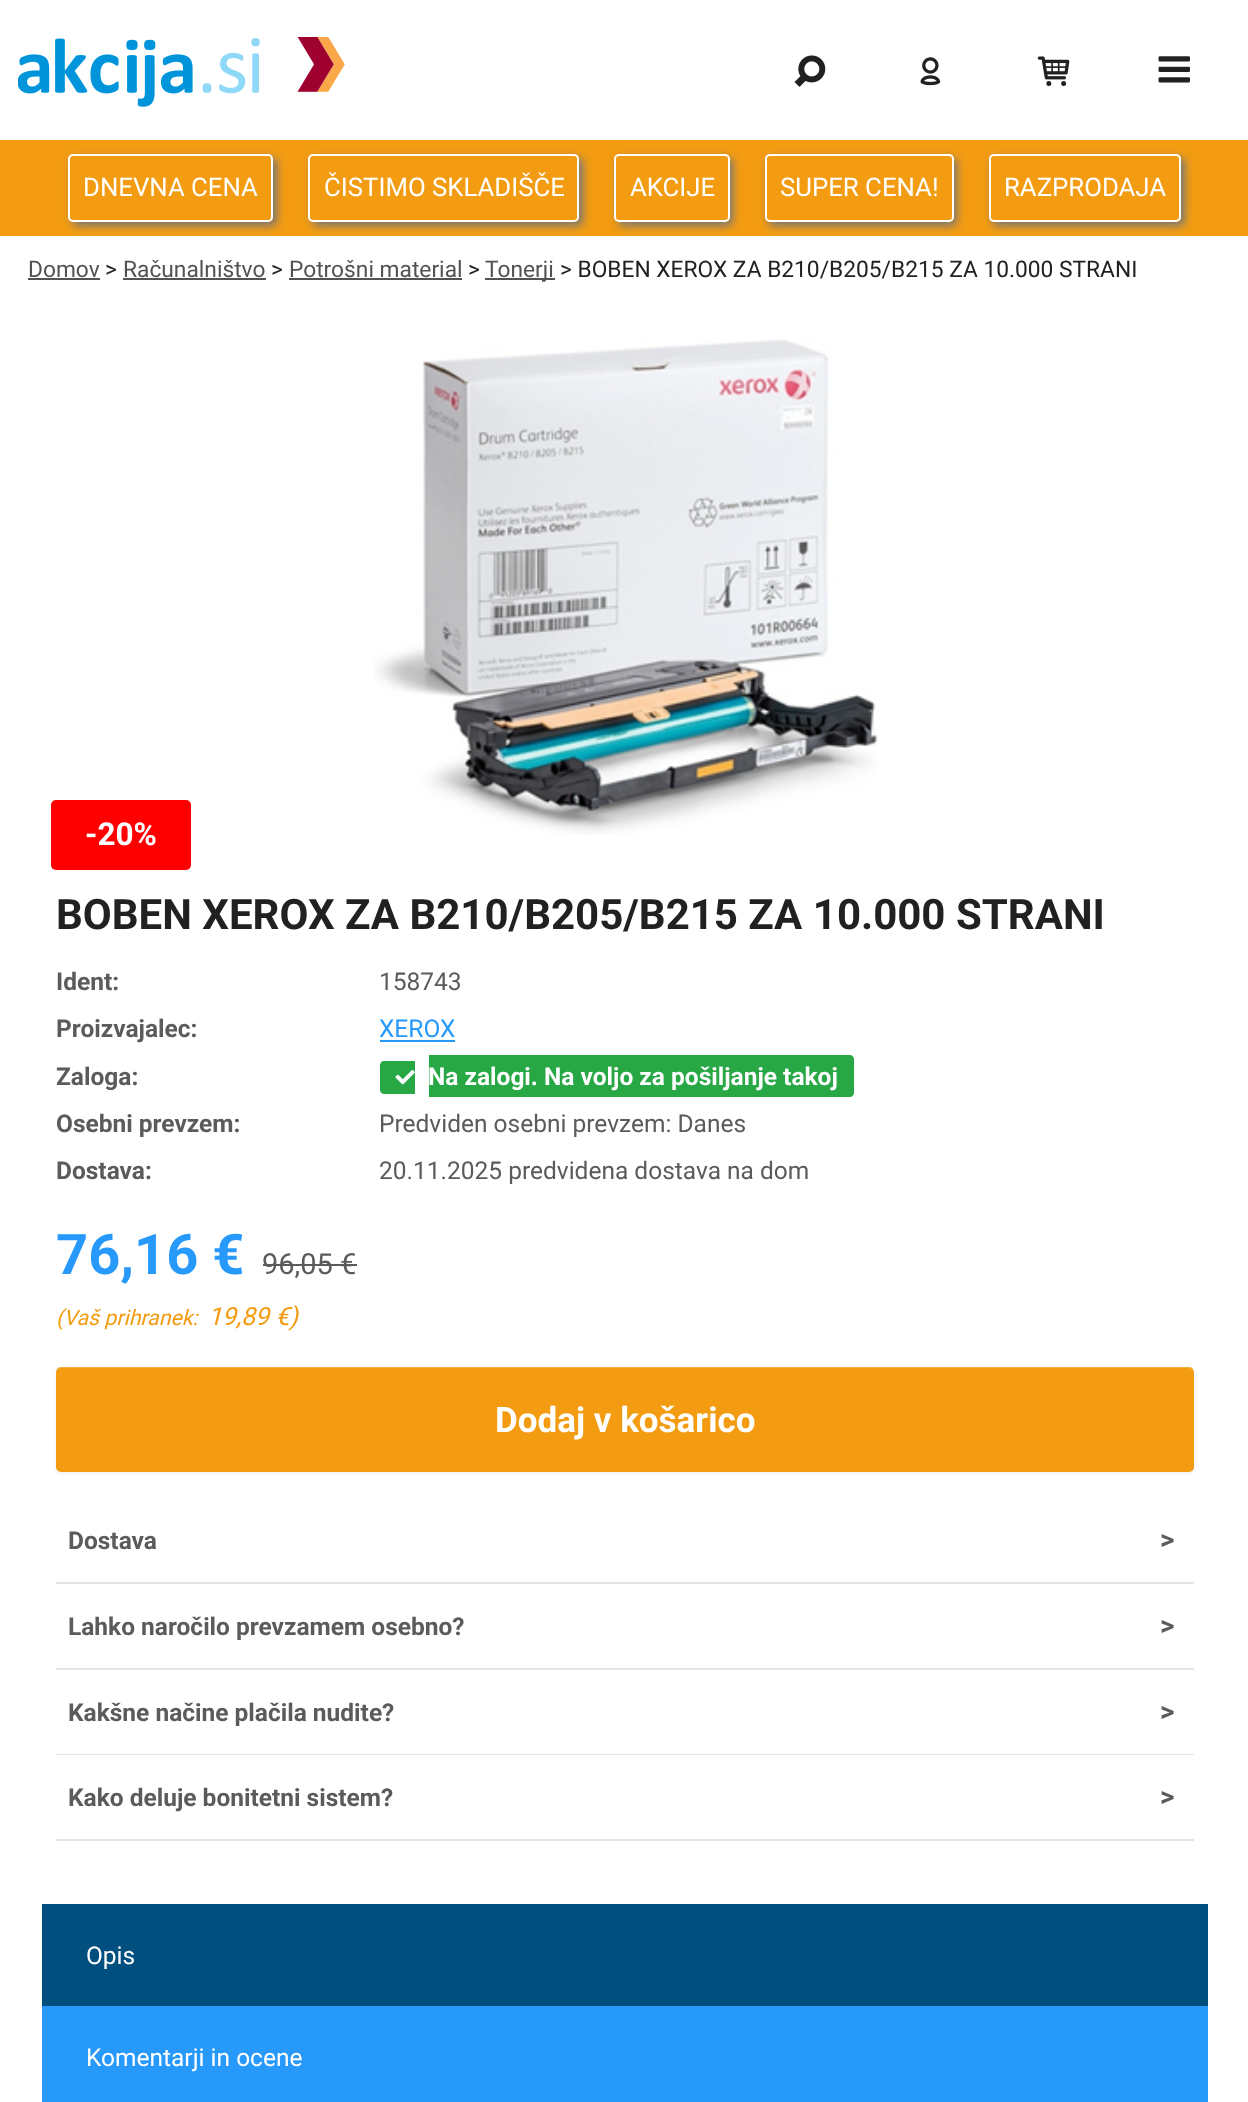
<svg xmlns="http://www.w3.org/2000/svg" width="1248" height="2102">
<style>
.a{font:25.75px Roboto;fill:#fff}
.b{font:22.75px Roboto;fill:#525252}
.c{font:22.75px Roboto;fill:#212121}
.d{font:bold 31.5px Roboto;fill:#fff}
.e{font:bold 56px Roboto;fill:#2699fb}
.f{font:29px Roboto;fill:#5a5b5c}
.g{font:italic 21.25px Roboto;fill:#f39c12}
.h{font:italic 25px Roboto;fill:#f39c12}
.i{font:bold 24.5px Roboto;fill:#5a5b5c}
.j{font:24.5px Roboto;fill:#5a5b5c}
.k{font:24.5px Roboto;fill:#2699fb}
.l{font:bold 24.5px Roboto;fill:#fff}
.m{font:bold 35px Roboto;fill:#fff}
.n{font:bold 42px Roboto;fill:#212121}
.o{font:bold 28px Roboto;fill:#5a5b5c}
.p{font:24.5px Roboto;fill:#fff}
</style>
<defs>
<clipPath id="clip1"><path d="M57 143h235v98h-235zm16 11h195c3 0 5 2 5 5v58c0 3-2 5-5 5h-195c-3 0-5-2-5-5v-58c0-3 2-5 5-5z" clip-rule="evenodd"/></clipPath>
<clipPath id="clip2"><path d="M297 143h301v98h-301zm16 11h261c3 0 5 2 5 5v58c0 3-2 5-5 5h-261c-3 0-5-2-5-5v-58c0-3 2-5 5-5z" clip-rule="evenodd"/></clipPath>
<clipPath id="clip3"><path d="M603 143h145v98h-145zm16 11h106c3 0 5 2 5 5v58c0 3-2 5-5 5h-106c-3 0-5-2-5-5v-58c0-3 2-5 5-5z" clip-rule="evenodd"/></clipPath>
<clipPath id="clip4"><path d="M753 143h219v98h-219zm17 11h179c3 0 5 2 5 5v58c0 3-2 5-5 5h-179c-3 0-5-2-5-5v-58c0-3 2-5 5-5z" clip-rule="evenodd"/></clipPath>
<clipPath id="clip5"><path d="M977 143h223v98h-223zm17 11h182c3 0 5 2 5 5v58c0 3-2 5-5 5h-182c-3 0-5-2-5-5v-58c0-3 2-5 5-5z" clip-rule="evenodd"/></clipPath>
</defs>
<rect width="100%" height="100%" fill="#fff"/>
<image href="1.png" x="18" y="37" width="327" height="70"/>
<image href="2.png" x="794" y="55" width="32" height="32"/>
<image href="3.png" x="920" y="57" width="21" height="29"/>
<image href="4.png" x="1037" y="56" width="33" height="30"/>
<image href="5.png" x="1158" y="56" width="32" height="27"/>
<path fill="#f39c12" d="M0 140h1248v96H0z"/>
<g clip-path="url(#clip1)">
<rect fill="#777" filter="blur(4.5px)" x="72" y="158" width="205" height="68" rx="5"/>
</g>
<rect fill="none" stroke="#fff" stroke-width="2" x="69" y="155" width="203" height="66" rx="4"/>
<g clip-path="url(#clip2)">
<rect fill="#777" filter="blur(4.5px)" x="312" y="158" width="271" height="68" rx="5"/>
</g>
<rect fill="none" stroke="#fff" stroke-width="2" x="309" y="155" width="269" height="66" rx="4"/>
<g clip-path="url(#clip3)">
<rect fill="#777" filter="blur(4.5px)" x="618" y="158" width="115" height="68" rx="5"/>
</g>
<rect fill="none" stroke="#fff" stroke-width="2" x="615" y="155" width="114" height="66" rx="4"/>
<g clip-path="url(#clip4)">
<rect fill="#777" filter="blur(4.5px)" x="768" y="158" width="189" height="68" rx="5"/>
</g>
<rect fill="none" stroke="#fff" stroke-width="2" x="766" y="155" width="187" height="66" rx="4"/>
<g clip-path="url(#clip5)">
<rect fill="#777" filter="blur(4.5px)" x="992" y="158" width="193" height="68" rx="5"/>
</g>
<rect fill="none" stroke="#fff" stroke-width="2" x="990" y="155" width="190" height="66" rx="4"/>
<path fill="#525252" d="M28 278h72v2H28z"/>
<path fill="#525252" d="M123 278h143v2H123z"/>
<path fill="#525252" d="M289 278h173v2H289z"/>
<path fill="#525252" d="M485 278h70v2H485z"/>
<image href="6.png" x="373" y="339" width="505" height="496"/>
<rect fill="#f00" x="51" y="800" width="140" height="70" rx="5"/>
<path fill="#5a5b5c" d="M263 1264h94v2H263z"/>
<path fill="#2699fb" d="M380 1040h75v2H380z"/>
<path fill="#28a745" d="M384 1061h31v33h-31c-2 0-4-2-4-4v-25c0-2 2-4 4-4z"/>
<image href="7.png" x="395" y="1070" width="20" height="15"/>
<path fill="#28a745" d="M429 1055h421c2 0 4 2 4 4v34c0 2-2 4-4 4h-421z"/>
<rect fill="#0000000d" filter="blur(2px)" x="56" y="1369" width="1138" height="105" rx="5"/>
<rect fill="#f39c12" x="56" y="1367" width="1138" height="105" rx="5"/>
<path fill="#ffffff33" d="M61 1368h1127c3 0 6 3 6 6v-2c0-3-2-5-5-5h-1128c-3 0-5 2-5 5v2c0-3 2-6 5-6z"/>
<path fill="#e5e5e5" d="M56 1582h1138v2H56z"/>
<path fill="#e5e5e5" d="M56 1668h1138v2H56z"/>
<path fill="#e5e5e5" d="M56 1754h1138v1H56z"/>
<path fill="#e5e5e5" d="M56 1839h1138v2H56z"/>
<path fill="#2699fb" d="M42 2006h1166v96H42z"/>
<path fill="#004f7f" d="M42 1904h1166v102H42z"/>
<text class="a" x="83" y="196">DNEVNA CENA</text>
<text class="a" x="324" y="196">ČISTIMO SKLADIŠČE</text>
<text class="a" x="630" y="196">AKCIJE</text>
<text class="a" x="780" y="196">SUPER CENA!</text>
<text class="a" x="1004" y="196">RAZPRODAJA</text>
<text class="b" x="28" y="277">Domov</text>
<text class="c" x="105" y="277">&gt;</text>
<text class="b" x="123" y="277">Računalništvo</text>
<text class="c" x="271" y="277">&gt;</text>
<text class="b" x="289" y="277">Potrošni material</text>
<text class="c" x="468" y="277">&gt;</text>
<text class="b" x="485" y="277">Tonerji</text>
<text class="c" x="560" y="277">&gt; BOBEN XEROX ZA B210/B205/B215 ZA 10.000 STRANI</text>
<text class="d" x="85" y="845">-20%</text>
<text class="e" x="56" y="1274">76,16 €</text>
<text class="f" x="262" y="1274">96,05 €</text>
<text class="g" x="56" y="1325">(Vaš prihranek:</text>
<text class="h" x="208" y="1325">19,89 €)</text>
<text class="i" x="56" y="990">Ident:</text>
<text class="j" x="379" y="990">158743</text>
<text class="i" x="56" y="1037">Proizvajalec:</text>
<text class="k" x="379" y="1037">XEROX</text>
<text class="i" x="56" y="1085">Zaloga:</text>
<text class="l" x="428" y="1085">Na zalogi. Na voljo za pošiljanje takoj</text>
<text class="i" x="56" y="1132">Osebni prevzem:</text>
<text class="j" x="379" y="1132">Predviden osebni prevzem: Danes</text>
<text class="i" x="56" y="1179">Dostava:</text>
<text class="j" x="379" y="1179">20.11.2025 predvidena dostava na dom</text>
<text class="m" x="495" y="1432">Dodaj v košarico</text>
<text class="n" x="56" y="929">BOBEN XEROX ZA B210/B205/B215 ZA 10.000 STRANI</text>
<text class="i" x="68" y="1549">Dostava</text>
<text class="o" x="1160" y="1549">&gt;</text>
<text class="i" x="68" y="1635">Lahko naročilo prevzamem osebno?</text>
<text class="o" x="1160" y="1635">&gt;</text>
<text class="i" x="68" y="1721">Kakšne načine plačila nudite?</text>
<text class="o" x="1160" y="1721">&gt;</text>
<text class="i" x="68" y="1806">Kako deluje bonitetni sistem?</text>
<text class="o" x="1160" y="1806">&gt;</text>
<text class="p" x="86" y="1964">Opis</text>
<text class="p" x="86" y="2066">Komentarji in ocene</text>
</svg>
